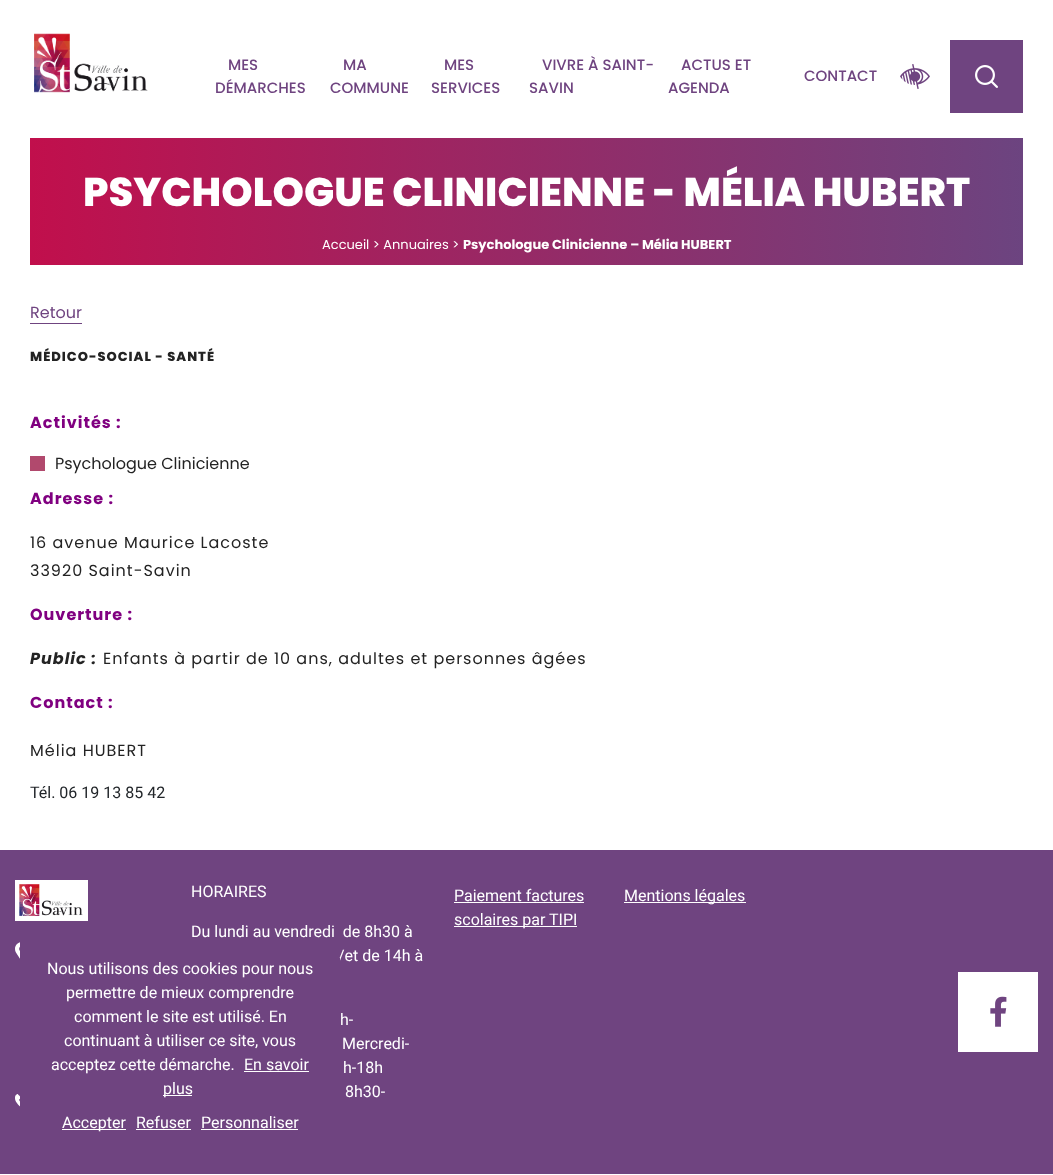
<svg xmlns="http://www.w3.org/2000/svg" width="1053" height="1175">
<style>
.a{font:500 15px Poppins;fill:#6f4480}
.b{font:800 40px Poppins;fill:#fff}
.c{font:13px Poppins;fill:#fff}
.d{font:bold 13px Poppins;fill:#fff}
.e{font:16px Poppins;fill:#6f4480}
.f{font:800 13px Poppins;letter-spacing:1px;fill:#232323}
.g{font:bold 16px Poppins;letter-spacing:1px;fill:#800080}
.h{font:16px Poppins;fill:#232323}
.i{font:16px Poppins;letter-spacing:1px;fill:#232323}
.j{font:italic bold 16px Poppins;letter-spacing:1px;fill:#232323}
.k{font:16px Roboto;fill:#212529}
.l{font:16px Roboto;fill:#fff}
</style>
<defs>
<linearGradient id="g1" gradientUnits="userSpaceOnUse" x1="1023" y1="202" x2="30" y2="201"><stop offset="0" stop-color="#6c4480"/><stop offset="1" stop-color="#c10f4c"/></linearGradient>
</defs>
<rect width="100%" height="100%" fill="#fff"/>
<image href="1.png" x="34" y="33" width="114" height="60"/>
<image href="2.png" x="900" y="64" width="30" height="25"/>
<path fill="#6f4480" d="M950 40h73v73H950z"/>
<image href="3.png" x="975" y="65" width="23" height="23"/>
<path fill="url(#g1)" d="M30 138h993v127H30z"/>
<path fill="#6f4480" d="M30 323h52v1H30z"/>
<path fill="#b1496d" d="M30 456h15v15H30z"/>
<path fill="#6f4480" d="M0 850h1053v324H0z"/>
<path fill="#fff" d="M244 1071h65v1H244z"/>
<path fill="#fff" d="M163 1095h29v1H163z"/>
<path fill="#fff" d="M62 1129h64v1H62z"/>
<path fill="#fff" d="M136 1129h55v1H136z"/>
<path fill="#fff" d="M201 1129h97v1H201z"/>
<image href="4.png" x="15" y="880" width="73" height="41"/>
<image href="5.png" x="15" y="942" width="5" height="17"/>
<image href="6.png" x="15" y="1094" width="5" height="13"/>
<path fill="#fff" d="M454 902h130v1H454z"/>
<path fill="#fff" d="M454 926h123v1H454z"/>
<path fill="#fff" d="M624 902h122v1H624z"/>
<path fill="#fff" d="M958 972h80v80H958z"/>
<image href="7.png" x="990" y="996" width="17" height="31"/>
<text class="a" x="228" y="70">MES</text>
<text class="a" x="215" y="93">DÉMARCHES</text>
<text class="a" x="343" y="70">MA</text>
<text class="a" x="330" y="93">COMMUNE</text>
<text class="a" x="444" y="70">MES</text>
<text class="a" x="431" y="93">SERVICES</text>
<text class="a" x="542" y="70">VIVRE À SAINT-</text>
<text class="a" x="529" y="93">SAVIN</text>
<text class="a" x="681" y="70">ACTUS ET</text>
<text class="a" x="668" y="93">AGENDA</text>
<text class="a" x="804" y="81">CONTACT</text>
<text class="b" x="83" y="206">PSYCHOLOGUE CLINICIENNE - MÉLIA HUBERT</text>
<text class="c" x="322" y="249">Accueil &gt; Annuaires &gt;</text>
<text class="d" x="463" y="249">Psychologue Clinicienne – Mélia HUBERT</text>
<text class="e" x="30" y="318">Retour</text>
<text class="f" x="30" y="361">MÉDICO-SOCIAL - SANTÉ</text>
<text class="g" x="30" y="428">Activités :</text>
<text class="h" x="55" y="469">Psychologue Clinicienne</text>
<text class="g" x="30" y="504">Adresse :</text>
<text class="i" x="30" y="548">16 avenue Maurice Lacoste</text>
<text class="i" x="30" y="576">33920 Saint-Savin</text>
<text class="g" x="30" y="620">Ouverture :</text>
<text class="j" x="30" y="664">Public :</text>
<text class="i" x="103" y="664">Enfants à partir de 10 ans, adultes et personnes âgées</text>
<text class="g" x="30" y="708">Contact :</text>
<text class="i" x="30" y="756">Mélia HUBERT</text>
<text class="k" x="30" y="798">Tél. 06 19 13 85 42</text>
<text class="l" x="47" y="974">Nous utilisons des cookies pour nous</text>
<text class="l" x="66" y="998">permettre de mieux comprendre</text>
<text class="l" x="74" y="1022">comment le site est utilisé. En</text>
<text class="l" x="64" y="1046">continuant à utiliser ce site, vous</text>
<text class="l" x="51" y="1070">acceptez cette démarche.</text>
<text class="l" x="244" y="1070">En savoir</text>
<text class="l" x="163" y="1094">plus</text>
<text class="l" x="62" y="1128">Accepter</text>
<text class="l" x="136" y="1128">Refuser</text>
<text class="l" x="201" y="1128">Personnaliser</text>
<text class="l" x="191" y="897">HORAIRES</text>
<text class="l" xml:space="preserve" x="191" y="937">Du lundi au vendredi  de 8h30 à</text>
<text class="l" x="338" y="961">/et de 14h à</text>
<path fill="#6f4480" d="M338 958h2v4H338z"/>
<text class="l" x="340" y="1025">h-</text>
<text class="l" x="342" y="1049">Mercredi-</text>
<text class="l" x="343" y="1073">h-18h</text>
<text class="l" x="345" y="1097">8h30-</text>
<text class="l" x="454" y="901">Paiement factures</text>
<text class="l" x="454" y="925">scolaires par TIPI</text>
<text class="l" x="624" y="901">Mentions légales</text>
</svg>
